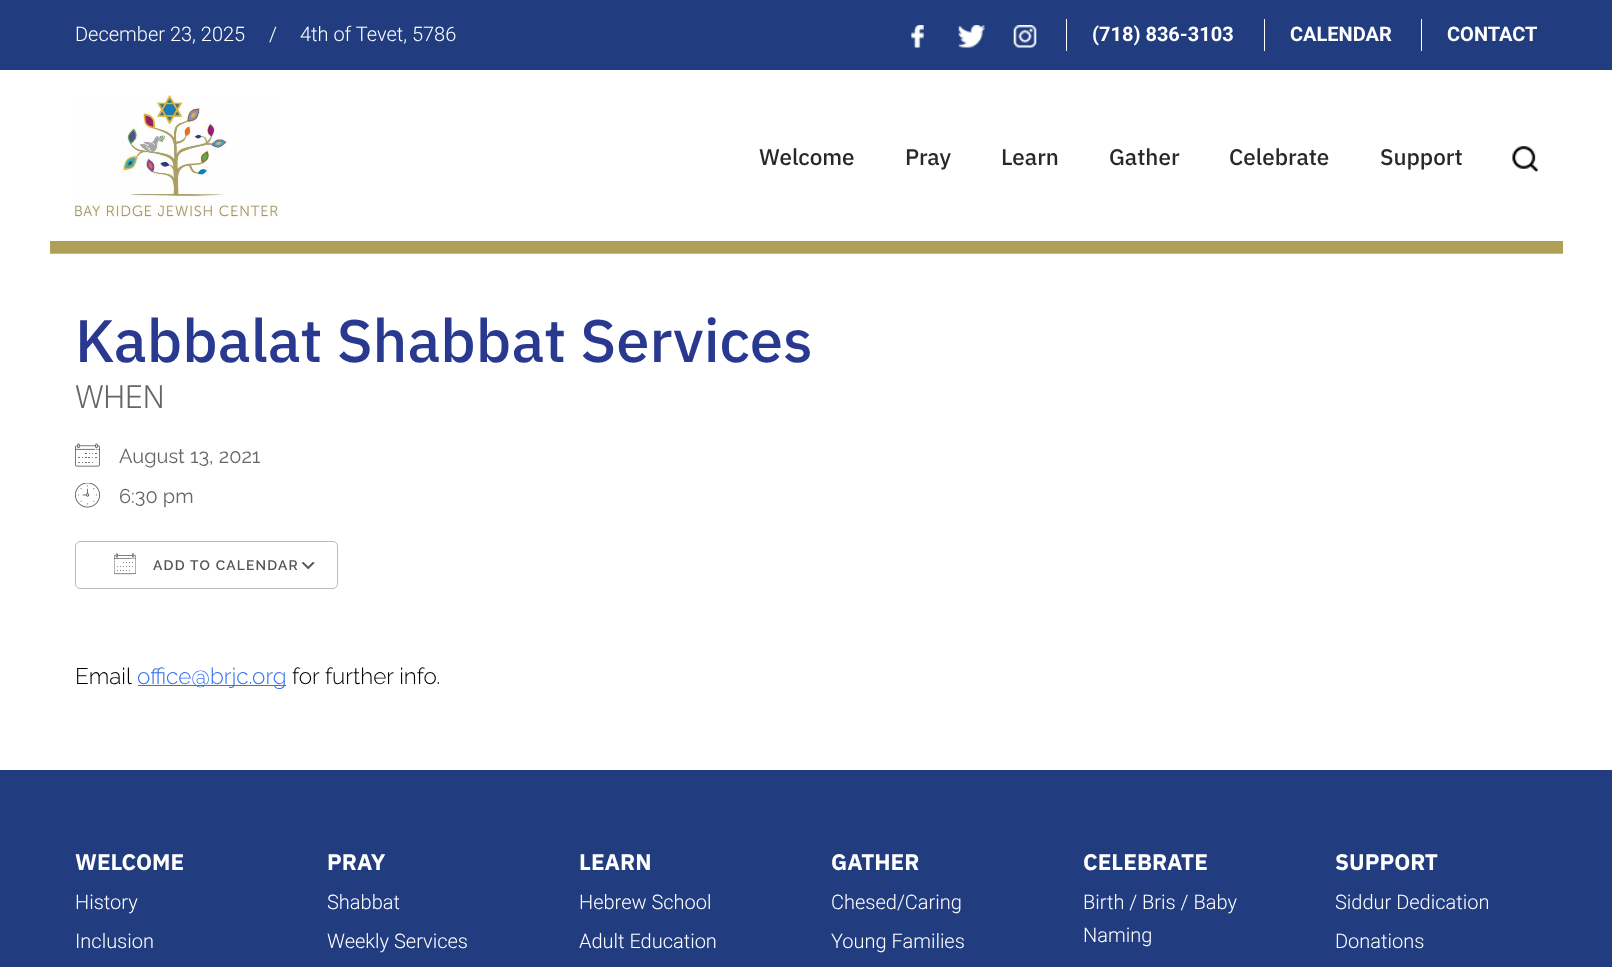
<svg xmlns="http://www.w3.org/2000/svg" width="1612" height="967">
<style>
.a{font:300 20px Roboto;fill:#fff}
.b{font:bold 20px Roboto;fill:#fff}
.c{font:500 22.5px IBM Plex Sans;fill:#282828}
.d{font:500 60px IBM Plex Sans;fill:#293990}
.e{font:300 32.5px IBM Plex Sans;letter-spacing:-1px;fill:#666}
.f{font:20px Raleway;fill:#666}
.g{font:600 13.75px Raleway;letter-spacing:1.25px;fill:#545454}
.h{font:300 22.5px Raleway;fill:#000}
.i{font:300 22.5px Raleway;fill:#3372f0}
.j{font:bold 22.5px IBM Plex Sans;fill:#fff}
</style>
<rect width="100%" height="100%" fill="#213c7f"/>
<image href="1.png" x="911" y="25" width="13" height="23"/>
<image href="2.png" x="958" y="25" width="27" height="23"/>
<image href="3.png" x="1013" y="25" width="24" height="23"/>
<path fill="#fff" d="M1066 19h1v32H1066z"/>
<path fill="#fff" d="M1264 19h1v32H1264z"/>
<path fill="#fff" d="M1421 19h1v32H1421z"/>
<path fill="#fff" d="M0 70h1612v700H0z"/>
<path fill="#b09f57" d="M50 241h1513v13H50z"/>
<image href="4.png" x="75" y="95" width="203" height="122"/>
<image href="5.png" x="1512" y="146" width="26" height="26"/>
<image href="6.png" x="0" y="253" width="1612" height="1"/>
<image href="7.png" x="75" y="443" width="25" height="24"/>
<image href="8.png" x="75" y="483" width="25" height="25"/>
<image href="9.png" x="301" y="562" width="14" height="8"/>
<rect fill="none" stroke="#bababa" x="75.5" y="541.5" width="262" height="47" rx="4.5"/>
<image href="10.png" x="114" y="553" width="22" height="22"/>
<path fill="#3372f0" d="M138 685h148v1H138z"/>
<text class="a" x="75" y="41">December 23, 2025</text>
<text class="a" x="269" y="41">/</text>
<text class="a" x="300" y="41">4th of Tevet, 5786</text>
<text class="b" x="1092" y="41">(718) 836-3103</text>
<text class="b" x="1290" y="41">CALENDAR</text>
<text class="b" x="1447" y="41">CONTACT</text>
<text class="c" x="759" y="165">Welcome</text>
<text class="c" x="905" y="165">Pray</text>
<text class="c" x="1001" y="165">Learn</text>
<text class="c" x="1109" y="165">Gather</text>
<text class="c" x="1229" y="165">Celebrate</text>
<text class="c" x="1380" y="165">Support</text>
<text class="d" x="75" y="362">Kabbalat Shabbat Services</text>
<text class="e" x="75" y="408">WHEN</text>
<text class="f" x="119" y="463">August 13, 2021</text>
<text class="f" x="119" y="503">6:30 pm</text>
<text class="g" x="153" y="570">ADD TO CALENDAR</text>
<text class="h" x="75" y="684">Email</text>
<text class="i" x="137" y="684">office@brjc.org</text>
<text class="h" x="292" y="684">for further info.</text>
<text class="j" x="75" y="870">WELCOME</text>
<text class="a" x="75" y="909">History</text>
<text class="a" x="75" y="948">Inclusion</text>
<text class="j" x="327" y="870">PRAY</text>
<text class="a" x="327" y="909">Shabbat</text>
<text class="a" x="327" y="948">Weekly Services</text>
<text class="j" x="579" y="870">LEARN</text>
<text class="a" x="579" y="909">Hebrew School</text>
<text class="a" x="579" y="948">Adult Education</text>
<text class="j" x="831" y="870">GATHER</text>
<text class="a" x="831" y="909">Chesed/Caring</text>
<text class="a" x="831" y="948">Young Families</text>
<text class="j" x="1083" y="870">CELEBRATE</text>
<text class="a" x="1083" y="909">Birth / Bris / Baby</text>
<text class="a" x="1083" y="942">Naming</text>
<text class="j" x="1335" y="870">SUPPORT</text>
<text class="a" x="1335" y="909">Siddur Dedication</text>
<text class="a" x="1335" y="948">Donations</text>
</svg>
